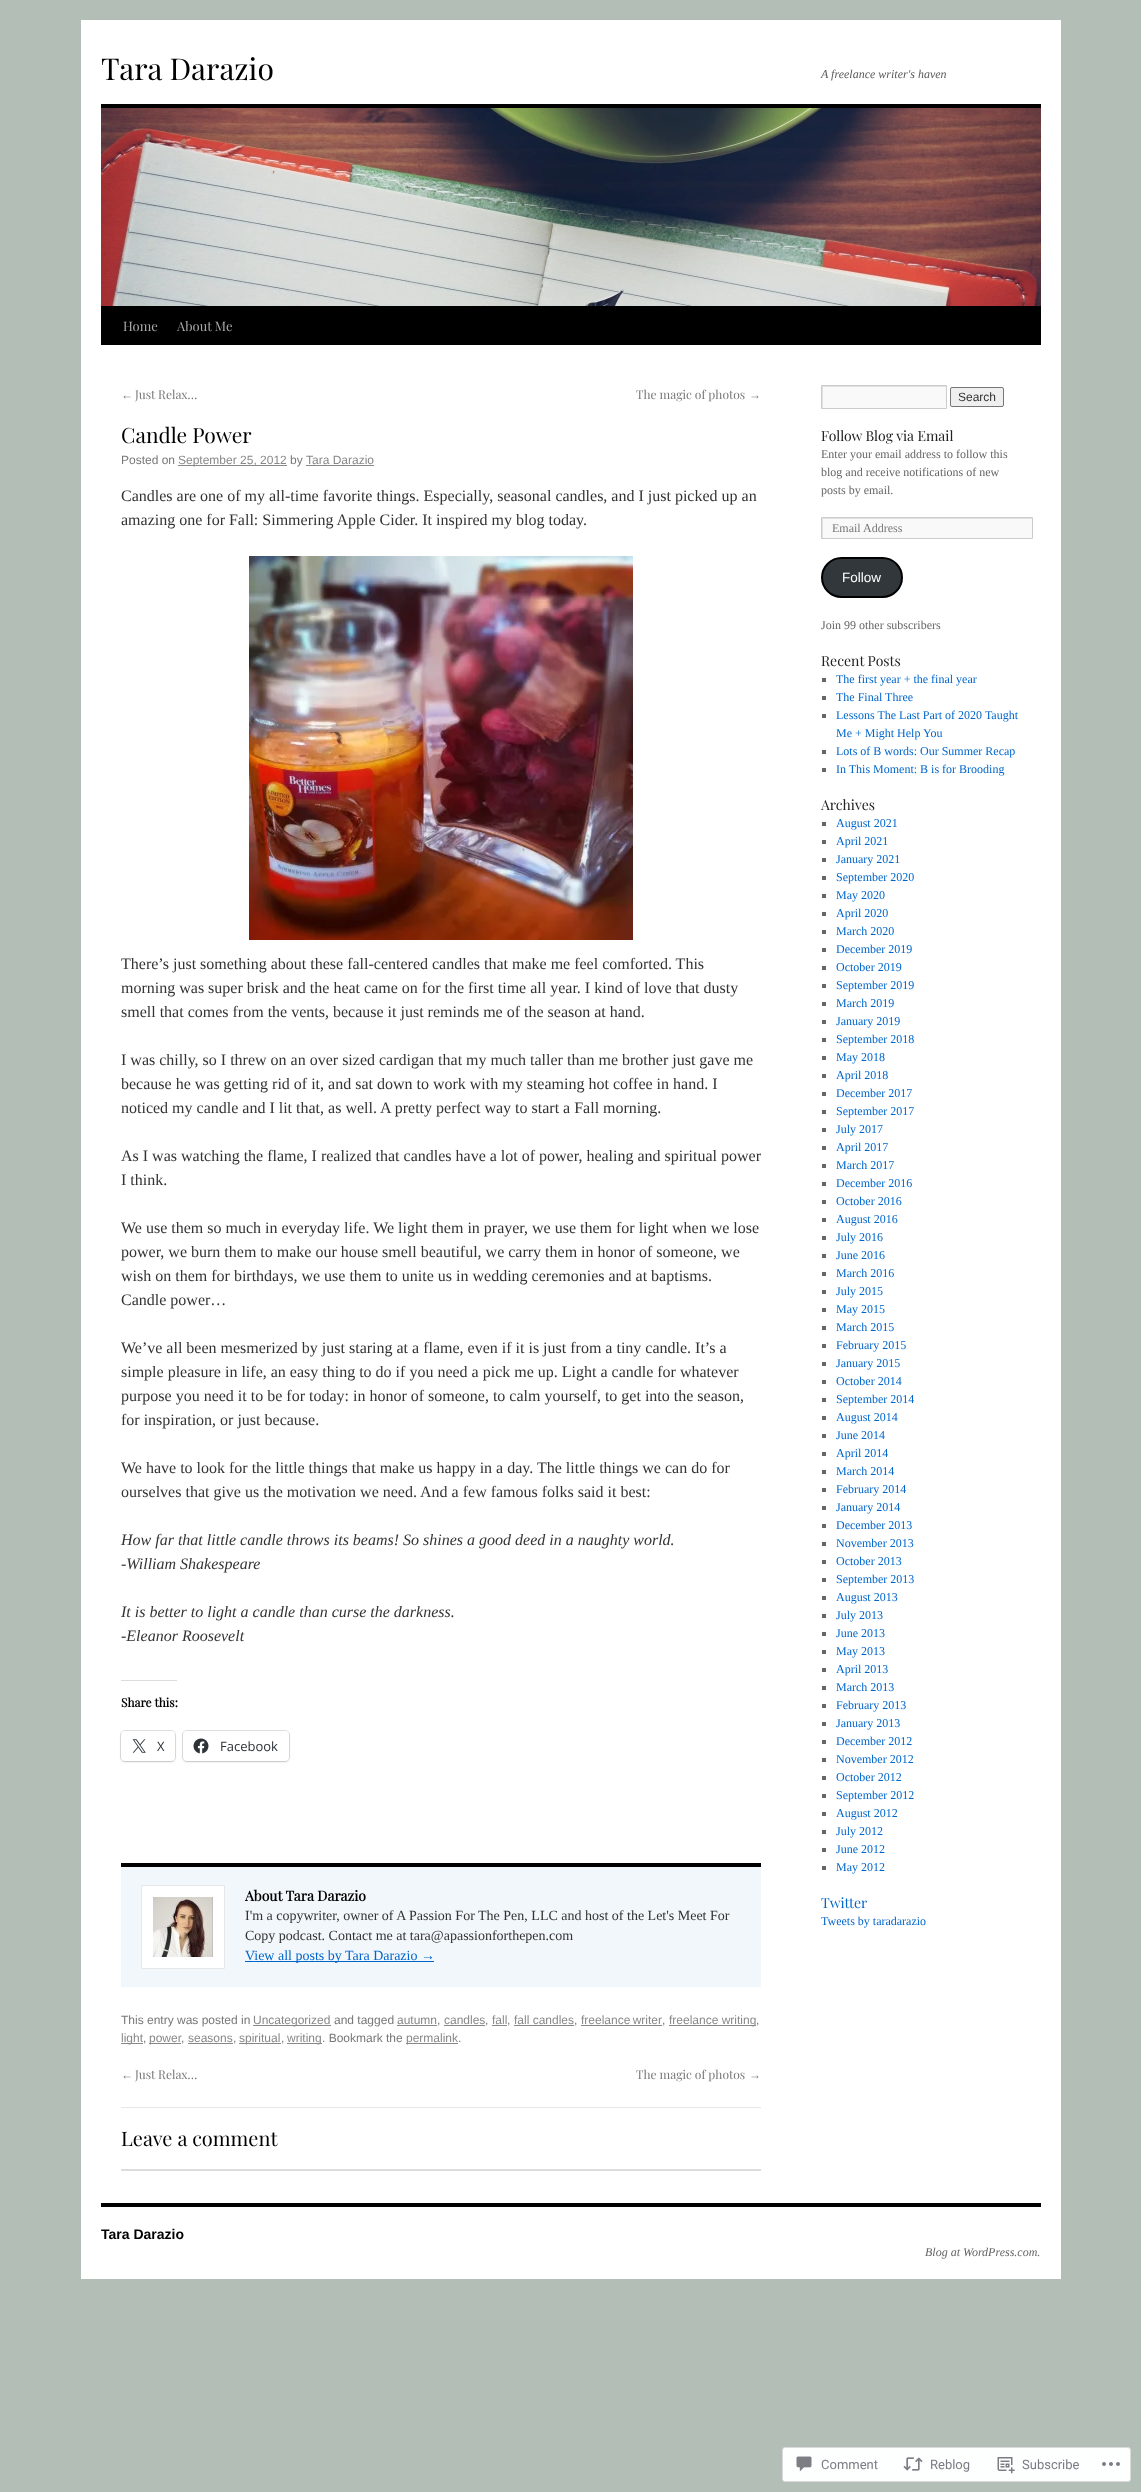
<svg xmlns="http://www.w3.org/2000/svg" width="1141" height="2492">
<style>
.a{font:30px Playfair Display;fill:#000}
.b{font:italic 12px Liberation Serif;fill:#595959}
.c{font:13px Playfair Display;fill:#aaa}
.d{font:12px Liberation Serif;fill:#777}
.e{font:12px Playfair Display;fill:#777}
.f{font:21px Playfair Display;fill:#000}
.g{font:12px Liberation Sans;fill:#777}
.h{font:12px Liberation Sans;fill:#888}
.i{font:16px Liberation Serif;fill:#333}
.j{font:italic 16px Liberation Serif;fill:#333}
.k{font:bold 12px Playfair Display;fill:#000}
.l{font:13px Open Sans;fill:#2c3338}
.m{font:bold 14px Playfair Display;fill:#000}
.n{font:14px Liberation Serif;fill:#333}
.o{font:14px Liberation Serif;fill:#06c}
.p{font:20px Playfair Display;fill:#000}
.q{font:12px Liberation Sans;fill:#333}
.r{font:14px Playfair Display;fill:#222}
.s{font:12px Liberation Serif;fill:#666}
.t{font:13.5px Liberation Sans;fill:#fff}
.u{font:12px Liberation Serif;fill:#06c}
.v{font:14px Playfair Display;fill:#06c}
.w{font:bold 14px Liberation Sans;fill:#000}
.x{font:italic 12px Liberation Serif;fill:#666}
.y{font:13px Roboto;fill:#797d83}
</style>
<defs>
<clipPath id="clip1"><path d="M822 386h124v22H822z"/></clipPath>
<clipPath id="clip2"><path d="M822 518h210v20H822z"/></clipPath>
</defs>
<rect width="100%" height="100%" fill="#b3beb6"/>
<path fill="#fff" d="M81 20h980v2259H81z"/>
<path fill="#000" d="M101 104h940v4H101z"/>
<path fill="#000" d="M101 306h940v39H101z"/>
<image href="1.png" x="101" y="108" width="940" height="198"/>
<path fill="#888" d="M178 465h109v1H178z"/>
<path fill="#888" d="M306 465h68v1H306z"/>
<image href="2.png" x="249" y="556" width="384" height="384"/>
<path fill="#dcdcde" d="M121 1680h56v1H121z"/>
<rect fill="none" stroke="#e0e0e0" x="120.5" y="1730.5" width="55" height="31" rx="4.5"/>
<rect fill="#0000001f" filter="blur(1px)" x="121" y="1732" width="54" height="30" rx="4"/>
<rect fill="#fff" x="121" y="1731" width="54" height="30" rx="4"/>
<image href="3.png" x="132" y="1739" width="14" height="14"/>
<rect fill="none" stroke="#e0e0e0" x="182.5" y="1730.5" width="107" height="31" rx="4.5"/>
<rect fill="#0000001f" filter="blur(1px)" x="183" y="1732" width="106" height="30" rx="4"/>
<rect fill="#fff" x="183" y="1731" width="106" height="30" rx="4"/>
<image href="4.png" x="193" y="1738" width="16" height="16"/>
<path fill="#f2f7fc" d="M121 1867h640v120H121z"/>
<path fill="#000" d="M121 1863h640v4H121z"/>
<path fill="#fff" stroke="#e7e7e7" d="M141.5 1885.5h83v83H141.5z"/>
<image href="5.png" x="153" y="1897" width="60" height="60"/>
<path fill="#06c" d="M245 1961h189v1H245z"/>
<path fill="#888" d="M253 2025h78v1H253z"/>
<path fill="#888" d="M397 2025h40v1H397z"/>
<path fill="#888" d="M444 2025h41v1H444z"/>
<path fill="#888" d="M492 2025h15v1H492z"/>
<path fill="#888" d="M514 2025h60v1H514z"/>
<path fill="#888" d="M581 2025h81v1H581z"/>
<path fill="#888" d="M669 2025h87v1H669z"/>
<path fill="#888" d="M121 2043h22v1H121z"/>
<path fill="#888" d="M149 2043h32v1H149z"/>
<path fill="#888" d="M188 2043h45v1H188z"/>
<path fill="#888" d="M239 2043h42v1H239z"/>
<path fill="#888" d="M287 2043h35v1H287z"/>
<path fill="#888" d="M406 2043h52v1H406z"/>
<path fill="#e7e7e7" d="M121 2107h640v1H121z"/>
<path fill="#dcdcde" d="M121 2169h640v2H121z"/>
<path fill="#f9f9f9" d="M823 387h123v21H823z"/>
<g clip-path="url(#clip1)">
<path fill="#e0e0e0" fill-rule="evenodd" d="M723 287h322v220h-322zm100 100h124v22h-124z"/>
</g>
<path fill="none" stroke="#ccc" d="M821.5 385.5h125v23H821.5z"/>
<rect fill="#efefef" stroke="#767676" x="950.5" y="387.5" width="53" height="19" rx="1.5"/>
<path fill="#f9f9f9" d="M823 519h209v19H823z"/>
<g clip-path="url(#clip2)">
<path fill="#e0e0e0" fill-rule="evenodd" d="M723 419h408v218h-408zm100 100h210v20h-210z"/>
</g>
<path fill="none" stroke="#ccc" d="M821.5 517.5h211v21H821.5z"/>
<rect fill="#32373c" stroke="#000" stroke-width="2" x="822" y="558" width="80" height="39" rx="19.5"/>
<path fill="#666" d="M822 678h4v4H822z"/>
<path fill="#666" d="M822 696h4v4H822z"/>
<path fill="#666" d="M822 714h4v4H822z"/>
<path fill="#666" d="M822 750h4v4H822z"/>
<path fill="#666" d="M822 768h4v4H822z"/>
<path fill="#666" d="M822 822h4v4H822z"/>
<path fill="#666" d="M822 840h4v4H822z"/>
<path fill="#666" d="M822 858h4v4H822z"/>
<path fill="#666" d="M822 876h4v4H822z"/>
<path fill="#666" d="M822 894h4v4H822z"/>
<path fill="#666" d="M822 912h4v4H822z"/>
<path fill="#666" d="M822 930h4v4H822z"/>
<path fill="#666" d="M822 948h4v4H822z"/>
<path fill="#666" d="M822 966h4v4H822z"/>
<path fill="#666" d="M822 984h4v4H822z"/>
<path fill="#666" d="M822 1002h4v4H822z"/>
<path fill="#666" d="M822 1020h4v4H822z"/>
<path fill="#666" d="M822 1038h4v4H822z"/>
<path fill="#666" d="M822 1056h4v4H822z"/>
<path fill="#666" d="M822 1074h4v4H822z"/>
<path fill="#666" d="M822 1092h4v4H822z"/>
<path fill="#666" d="M822 1110h4v4H822z"/>
<path fill="#666" d="M822 1128h4v4H822z"/>
<path fill="#666" d="M822 1146h4v4H822z"/>
<path fill="#666" d="M822 1164h4v4H822z"/>
<path fill="#666" d="M822 1182h4v4H822z"/>
<path fill="#666" d="M822 1200h4v4H822z"/>
<path fill="#666" d="M822 1218h4v4H822z"/>
<path fill="#666" d="M822 1236h4v4H822z"/>
<path fill="#666" d="M822 1254h4v4H822z"/>
<path fill="#666" d="M822 1272h4v4H822z"/>
<path fill="#666" d="M822 1290h4v4H822z"/>
<path fill="#666" d="M822 1308h4v4H822z"/>
<path fill="#666" d="M822 1326h4v4H822z"/>
<path fill="#666" d="M822 1344h4v4H822z"/>
<path fill="#666" d="M822 1362h4v4H822z"/>
<path fill="#666" d="M822 1380h4v4H822z"/>
<path fill="#666" d="M822 1398h4v4H822z"/>
<path fill="#666" d="M822 1416h4v4H822z"/>
<path fill="#666" d="M822 1434h4v4H822z"/>
<path fill="#666" d="M822 1452h4v4H822z"/>
<path fill="#666" d="M822 1470h4v4H822z"/>
<path fill="#666" d="M822 1488h4v4H822z"/>
<path fill="#666" d="M822 1506h4v4H822z"/>
<path fill="#666" d="M822 1524h4v4H822z"/>
<path fill="#666" d="M822 1542h4v4H822z"/>
<path fill="#666" d="M822 1560h4v4H822z"/>
<path fill="#666" d="M822 1578h4v4H822z"/>
<path fill="#666" d="M822 1596h4v4H822z"/>
<path fill="#666" d="M822 1614h4v4H822z"/>
<path fill="#666" d="M822 1632h4v4H822z"/>
<path fill="#666" d="M822 1650h4v4H822z"/>
<path fill="#666" d="M822 1668h4v4H822z"/>
<path fill="#666" d="M822 1686h4v4H822z"/>
<path fill="#666" d="M822 1704h4v4H822z"/>
<path fill="#666" d="M822 1722h4v4H822z"/>
<path fill="#666" d="M822 1740h4v4H822z"/>
<path fill="#666" d="M822 1758h4v4H822z"/>
<path fill="#666" d="M822 1776h4v4H822z"/>
<path fill="#666" d="M822 1794h4v4H822z"/>
<path fill="#666" d="M822 1812h4v4H822z"/>
<path fill="#666" d="M822 1830h4v4H822z"/>
<path fill="#666" d="M822 1848h4v4H822z"/>
<path fill="#666" d="M822 1866h4v4H822z"/>
<path fill="#000" d="M101 2203h940v4H101z"/>
<rect fill="#fdfefe" stroke="#dbdbdd" x="782.5" y="2447.5" width="348" height="34" rx="2.5"/>
<image href="6.png" x="796" y="2456" width="16" height="16"/>
<image href="7.png" x="903" y="2457" width="20" height="14"/>
<image href="8.png" x="997" y="2457" width="18" height="17"/>
<image href="9.png" x="1102" y="2462" width="18" height="4"/>
<text class="a" x="101" y="80">Tara Darazio</text>
<text class="b" x="821" y="78">A freelance writer's haven</text>
<text class="c" x="123" y="331">Home</text>
<text class="c" x="177" y="331">About Me</text>
<text class="d" x="121" y="399">←</text>
<text class="e" x="135" y="399">Just Relax…</text>
<text class="e" x="636" y="399">The magic of photos</text>
<text class="d" x="749" y="399">→</text>
<text class="f" x="121" y="443">Candle Power</text>
<text class="g" x="121" y="464">Posted on</text>
<text class="h" x="178" y="464">September 25, 2012</text>
<text class="g" x="290" y="464">by</text>
<text class="h" x="306" y="464">Tara Darazio</text>
<text class="i" x="121" y="501">Candles are one of my all-time favorite things. Especially, seasonal candles, and I just picked up an</text>
<text class="i" x="121" y="525">amazing one for Fall: Simmering Apple Cider. It inspired my blog today.</text>
<text class="i" x="121" y="969">There’s just something about these fall-centered candles that make me feel comforted. This</text>
<text class="i" x="121" y="993">morning was super brisk and the heat came on for the first time all year. I kind of love that dusty</text>
<text class="i" x="121" y="1017">smell that comes from the vents, because it just reminds me of the season at hand.</text>
<text class="i" x="121" y="1065">I was chilly, so I threw on an over sized cardigan that my much taller than me brother just gave me</text>
<text class="i" x="121" y="1089">because he was getting rid of it, and sat down to work with my steaming hot coffee in hand. I</text>
<text class="i" x="121" y="1113">noticed my candle and I lit that, as well. A pretty perfect way to start a Fall morning.</text>
<text class="i" x="121" y="1161">As I was watching the flame, I realized that candles have a lot of power, healing and spiritual power</text>
<text class="i" x="121" y="1185">I think.</text>
<text class="i" x="121" y="1233">We use them so much in everyday life. We light them in prayer, we use them for light when we lose</text>
<text class="i" x="121" y="1257">power, we burn them to make our house smell beautiful, we carry them in honor of someone, we</text>
<text class="i" x="121" y="1281">wish on them for birthdays, we use them to unite us in wedding ceremonies and at baptisms.</text>
<text class="i" x="121" y="1305">Candle power…</text>
<text class="i" x="121" y="1353">We’ve all been mesmerized by just staring at a flame, even if it is just from a tiny candle. It’s a</text>
<text class="i" x="121" y="1377">simple pleasure in life, an easy thing to do if you need a pick me up. Light a candle for whatever</text>
<text class="i" x="121" y="1401">purpose you need it to be for today: in honor of someone, to calm yourself, to get into the season,</text>
<text class="i" x="121" y="1425">for inspiration, or just because.</text>
<text class="i" x="121" y="1473">We have to look for the little things that make us happy in a day. The little things we can do for</text>
<text class="i" x="121" y="1497">ourselves that give us the motivation we need. And a few famous folks said it best:</text>
<text class="j" x="121" y="1545">How far that little candle throws its beams! So shines a good deed in a naughty world.</text>
<text class="j" x="121" y="1569">-William Shakespeare</text>
<text class="j" x="121" y="1617">It is better to light a candle than curse the darkness.</text>
<text class="j" x="121" y="1641">-Eleanor Roosevelt</text>
<text class="k" x="121" y="1707">Share this:</text>
<text class="l" x="157" y="1751">X</text>
<text class="l" x="220" y="1751">Facebook</text>
<text class="m" x="245" y="1901">About Tara Darazio</text>
<text class="n" x="245" y="1920">I'm a copywriter, owner of A Passion For The Pen, LLC and host of the Let's Meet For</text>
<text class="n" x="245" y="1940">Copy podcast. Contact me at tara@apassionforthepen.com</text>
<text class="o" x="245" y="1960">View all posts by Tara Darazio →</text>
<text class="g" x="121" y="2024">This entry was posted in</text>
<text class="h" x="253" y="2024">Uncategorized</text>
<text class="g" x="334" y="2024">and tagged</text>
<text class="h" x="397" y="2024">autumn</text>
<text class="g" x="437" y="2024">,</text>
<text class="h" x="444" y="2024">candles</text>
<text class="g" x="485" y="2024">,</text>
<text class="h" x="492" y="2024">fall</text>
<text class="g" x="507" y="2024">,</text>
<text class="h" x="514" y="2024">fall candles</text>
<text class="g" x="574" y="2024">,</text>
<text class="h" x="581" y="2024" word-spacing="-1">freelance writer</text>
<text class="g" x="662" y="2024">,</text>
<text class="h" x="669" y="2024">freelance writing</text>
<text class="g" x="756" y="2024">,</text>
<text class="h" x="121" y="2042">light</text>
<text class="g" x="143" y="2042">,</text>
<text class="h" x="149" y="2042">power</text>
<text class="g" x="181" y="2042">,</text>
<text class="h" x="188" y="2042">seasons</text>
<text class="g" x="233" y="2042">,</text>
<text class="h" x="239" y="2042">spiritual</text>
<text class="g" x="281" y="2042">,</text>
<text class="h" x="287" y="2042">writing</text>
<text class="g" x="322" y="2042">. Bookmark the</text>
<text class="h" x="406" y="2042">permalink</text>
<text class="g" x="458" y="2042">.</text>
<text class="d" x="121" y="2079">←</text>
<text class="e" x="135" y="2079">Just Relax…</text>
<text class="e" x="636" y="2079">The magic of photos</text>
<text class="d" x="749" y="2079">→</text>
<text class="p" x="121" y="2146">Leave a comment</text>
<text class="q" x="958" y="401">Search</text>
<text class="r" x="821" y="441">Follow Blog via Email</text>
<text class="s" x="821" y="458">Enter your email address to follow this</text>
<text class="s" x="821" y="476">blog and receive notifications of new</text>
<text class="s" x="821" y="494">posts by email.</text>
<text class="d" x="832" y="532">Email Address</text>
<text class="t" x="842" y="582">Follow</text>
<text class="s" x="821" y="629">Join 99 other subscribers</text>
<text class="r" x="821" y="666">Recent Posts</text>
<text class="u" x="836" y="683">The first year + the final year</text>
<text class="u" x="836" y="701">The Final Three</text>
<text class="u" x="836" y="719">Lessons The Last Part of 2020 Taught</text>
<text class="u" x="836" y="737">Me + Might Help You</text>
<text class="u" x="836" y="755">Lots of B words: Our Summer Recap</text>
<text class="u" x="836" y="773">In This Moment: B is for Brooding</text>
<text class="r" x="821" y="810">Archives</text>
<text class="u" x="836" y="827">August 2021</text>
<text class="u" x="836" y="845">April 2021</text>
<text class="u" x="836" y="863">January 2021</text>
<text class="u" x="836" y="881">September 2020</text>
<text class="u" x="836" y="899">May 2020</text>
<text class="u" x="836" y="917">April 2020</text>
<text class="u" x="836" y="935">March 2020</text>
<text class="u" x="836" y="953">December 2019</text>
<text class="u" x="836" y="971">October 2019</text>
<text class="u" x="836" y="989">September 2019</text>
<text class="u" x="836" y="1007">March 2019</text>
<text class="u" x="836" y="1025">January 2019</text>
<text class="u" x="836" y="1043">September 2018</text>
<text class="u" x="836" y="1061">May 2018</text>
<text class="u" x="836" y="1079">April 2018</text>
<text class="u" x="836" y="1097">December 2017</text>
<text class="u" x="836" y="1115">September 2017</text>
<text class="u" x="836" y="1133">July 2017</text>
<text class="u" x="836" y="1151">April 2017</text>
<text class="u" x="836" y="1169">March 2017</text>
<text class="u" x="836" y="1187">December 2016</text>
<text class="u" x="836" y="1205">October 2016</text>
<text class="u" x="836" y="1223">August 2016</text>
<text class="u" x="836" y="1241">July 2016</text>
<text class="u" x="836" y="1259">June 2016</text>
<text class="u" x="836" y="1277">March 2016</text>
<text class="u" x="836" y="1295">July 2015</text>
<text class="u" x="836" y="1313">May 2015</text>
<text class="u" x="836" y="1331">March 2015</text>
<text class="u" x="836" y="1349">February 2015</text>
<text class="u" x="836" y="1367">January 2015</text>
<text class="u" x="836" y="1385">October 2014</text>
<text class="u" x="836" y="1403">September 2014</text>
<text class="u" x="836" y="1421">August 2014</text>
<text class="u" x="836" y="1439">June 2014</text>
<text class="u" x="836" y="1457">April 2014</text>
<text class="u" x="836" y="1475">March 2014</text>
<text class="u" x="836" y="1493">February 2014</text>
<text class="u" x="836" y="1511">January 2014</text>
<text class="u" x="836" y="1529">December 2013</text>
<text class="u" x="836" y="1547">November 2013</text>
<text class="u" x="836" y="1565">October 2013</text>
<text class="u" x="836" y="1583">September 2013</text>
<text class="u" x="836" y="1601">August 2013</text>
<text class="u" x="836" y="1619">July 2013</text>
<text class="u" x="836" y="1637">June 2013</text>
<text class="u" x="836" y="1655">May 2013</text>
<text class="u" x="836" y="1673">April 2013</text>
<text class="u" x="836" y="1691">March 2013</text>
<text class="u" x="836" y="1709">February 2013</text>
<text class="u" x="836" y="1727">January 2013</text>
<text class="u" x="836" y="1745">December 2012</text>
<text class="u" x="836" y="1763">November 2012</text>
<text class="u" x="836" y="1781">October 2012</text>
<text class="u" x="836" y="1799">September 2012</text>
<text class="u" x="836" y="1817">August 2012</text>
<text class="u" x="836" y="1835">July 2012</text>
<text class="u" x="836" y="1853">June 2012</text>
<text class="u" x="836" y="1871">May 2012</text>
<text class="v" x="821" y="1908">Twitter</text>
<text class="u" x="821" y="1925">Tweets by taradarazio</text>
<text class="w" x="101" y="2239">Tara Darazio</text>
<text class="x" x="925" y="2256">Blog at WordPress.com.</text>
<text class="y" x="821" y="2469">Comment</text>
<text class="y" x="930" y="2469">Reblog</text>
<text class="y" x="1022" y="2469">Subscribe</text>
</svg>
